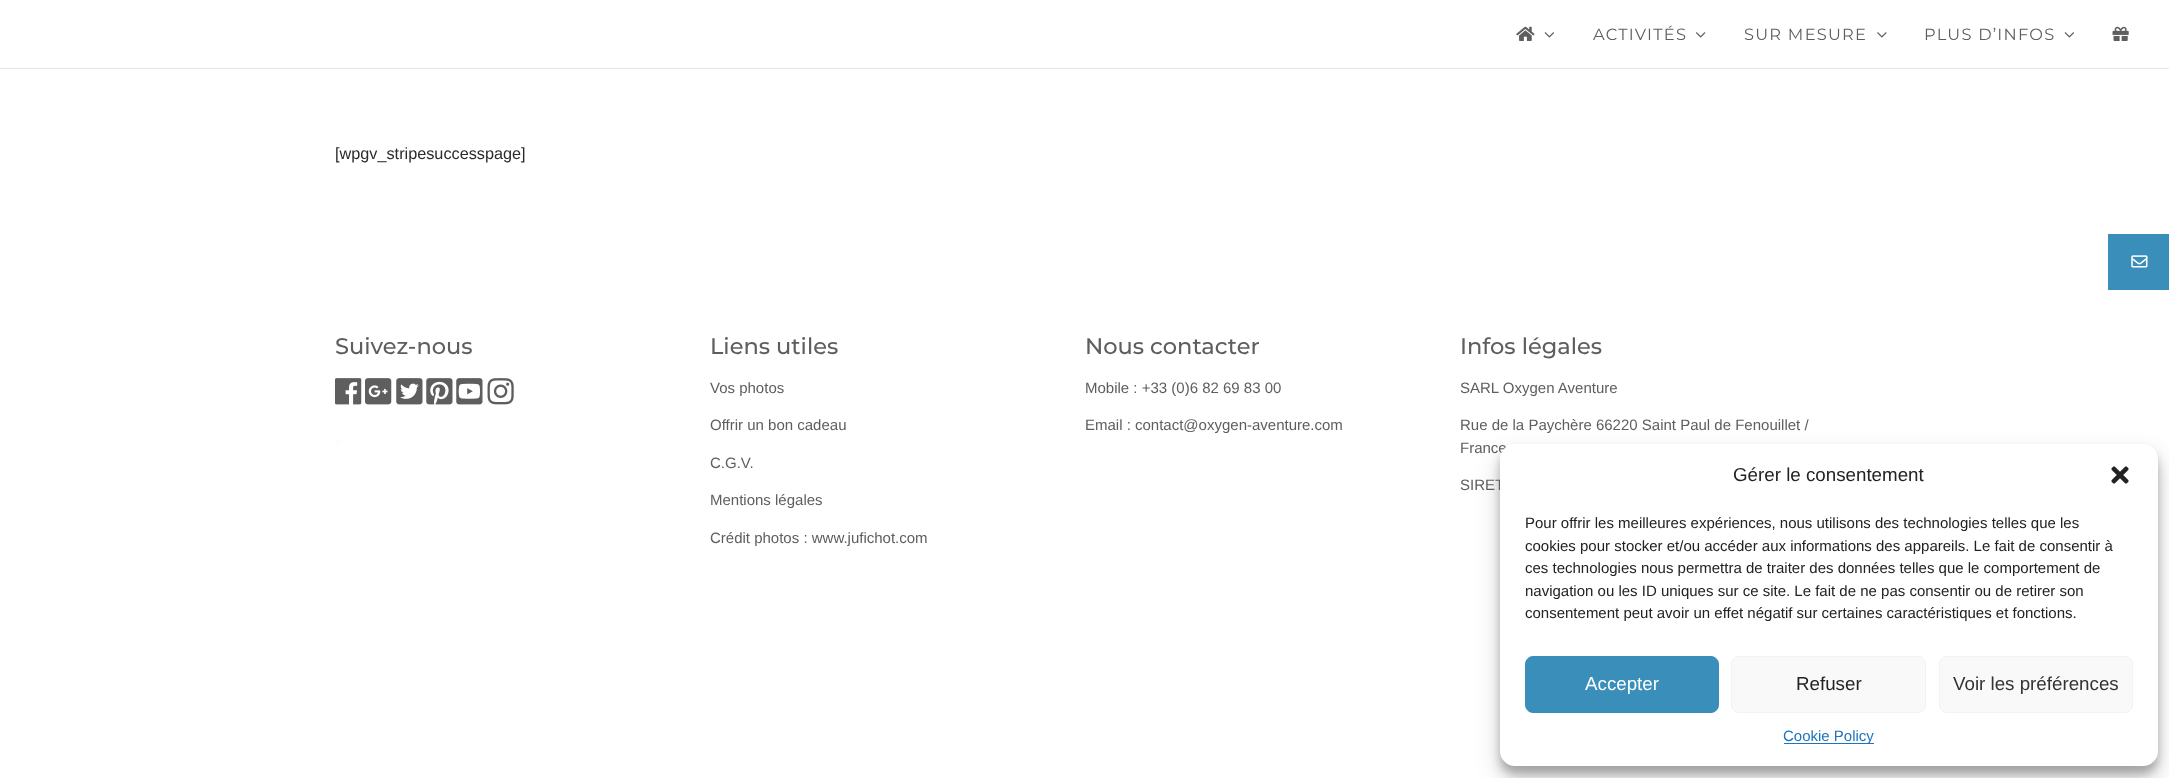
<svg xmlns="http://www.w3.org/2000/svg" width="2169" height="778">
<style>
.a{font:16.25px Montserrat;letter-spacing:1.25px;fill:#5e5e5e}
.b{font:16.25px Liberation Sans;fill:#2b2b2b}
.c{font:500 22.5px Montserrat;fill:#5e5e5e}
.d{font:15px Liberation Sans;fill:#5e5e5e}
.e{font:18.75px Liberation Sans;fill:#222}
.f{font:15px Liberation Sans;fill:#222}
.g{font:18.75px Liberation Sans;fill:#fff}
.h{font:18.75px Liberation Sans;fill:#333}
.i{font:15px Liberation Sans;fill:#1e73be}
</style>
<rect width="100%" height="100%" fill="#fff"/>
<path fill="#e6e6e6" d="M0 68h2169v1H0z"/>
<image href="1.png" x="1516" y="26" width="19" height="15"/>
<image href="2.png" x="1544" y="32" width="10" height="6"/>
<image href="3.png" x="1696" y="32" width="10" height="6"/>
<image href="4.png" x="1877" y="32" width="10" height="6"/>
<image href="2.png" x="2064" y="32" width="10" height="6"/>
<image href="5.png" x="2112" y="26" width="17" height="15"/>
<image href="6.png" x="335" y="378" width="27" height="27"/>
<image href="7.png" x="365" y="378" width="27" height="27"/>
<image href="8.png" x="396" y="378" width="27" height="27"/>
<image href="9.png" x="426" y="378" width="27" height="27"/>
<image href="10.png" x="456" y="378" width="27" height="27"/>
<image href="11.png" x="487" y="378" width="27" height="27"/>
<rect fill="#fffcfc" x="335" y="439" width="8" height="7" rx="3.5"/>
<path fill="#3a8eba" d="M2108 234h61v56H2108z"/>
<image href="12.png" x="2131" y="255" width="17" height="13"/>
<rect fill="#0000003b" filter="blur(4px)" x="1500" y="451" width="658" height="323" rx="15"/>
<rect fill="#00000030" filter="blur(12.5px)" x="1500" y="456" width="658" height="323" rx="15"/>
<text class="a" x="1593" y="40">ACTIVITÉS</text>
<text class="a" x="1744" y="40">SUR MESURE</text>
<text class="a" x="1924" y="40">PLUS D’INFOS</text>
<text class="b" x="335" y="159">[wpgv_stripesuccesspage]</text>
<text class="c" x="335" y="354">Suivez-nous</text>
<text class="c" x="710" y="354">Liens utiles</text>
<text class="d" x="710" y="393">Vos photos</text>
<text class="d" x="710" y="430">Offrir un bon cadeau</text>
<text class="d" x="710" y="468">C.G.V.</text>
<text class="d" x="710" y="505">Mentions légales</text>
<text class="d" x="710" y="543">Crédit photos : www.jufichot.com</text>
<text class="c" x="1085" y="354">Nous contacter</text>
<text class="d" x="1085" y="393">Mobile : +33 (0)6 82 69 83 00</text>
<text class="d" x="1085" y="430">Email : contact@oxygen-aventure.com</text>
<text class="c" x="1460" y="354">Infos légales</text>
<text class="d" x="1460" y="393">SARL Oxygen Aventure</text>
<text class="d" x="1460" y="430">Rue de la Paychère 66220 Saint Paul de Fenouillet /</text>
<text class="d" x="1460" y="453">France</text>
<text class="d" x="1460" y="490">SIRET</text>
<rect fill="#fff" x="1500" y="444" width="658" height="322" rx="15"/>
<text class="e" x="1733" y="481">Gérer le consentement</text>
<image href="13.png" x="2111" y="466" width="18" height="18"/>
<text class="f" x="1525" y="528">Pour offrir les meilleures expériences, nous utilisons des technologies telles que les</text>
<text class="f" x="1525" y="551">cookies pour stocker et/ou accéder aux informations des appareils. Le fait de consentir à</text>
<text class="f" x="1525" y="573">ces technologies nous permettra de traiter des données telles que le comportement de</text>
<text class="f" x="1525" y="596">navigation ou les ID uniques sur ce site. Le fait de ne pas consentir ou de retirer son</text>
<text class="f" x="1525" y="618">consentement peut avoir un effet négatif sur certaines caractéristiques et fonctions.</text>
<rect fill="#3a8eba" stroke="#3a8eba" x="1525.5" y="656.5" width="193" height="56" rx="7.5"/>
<text class="g" x="1585" y="690">Accepter</text>
<rect fill="#f9f9f9" stroke="#f2f2f2" x="1731.5" y="656.5" width="194" height="56" rx="7.5"/>
<text class="e" x="1796" y="690">Refuser</text>
<rect fill="#f9f9f9" stroke="#f2f2f2" x="1939.5" y="656.5" width="193" height="56" rx="7.5"/>
<text class="h" x="1953" y="690">Voir les préférences</text>
<path fill="#1e73be" d="M1784 743h90v1H1784z"/>
<text class="i" x="1783" y="741">Cookie Policy</text>
</svg>
